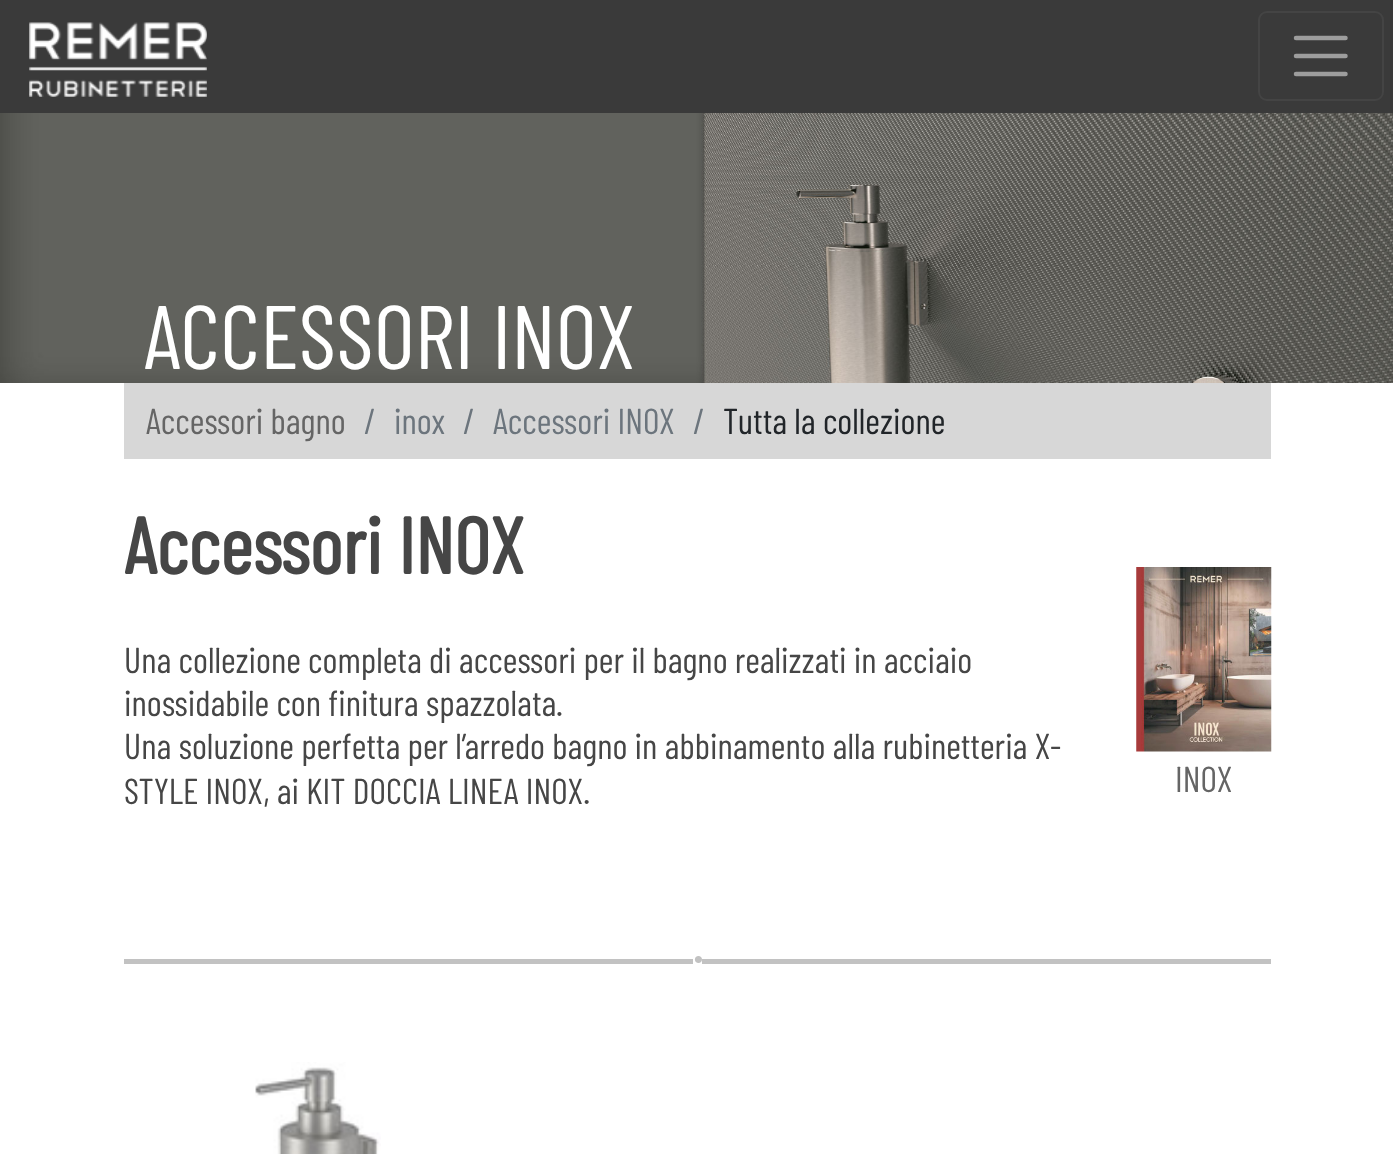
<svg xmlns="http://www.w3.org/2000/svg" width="1393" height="1154">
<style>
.a{font:90px Barlow Condensed;fill:#fff}
.b{font:36px Barlow Condensed;fill:#656565}
.c{font:36px Barlow Condensed;fill:#6c757d}
.d{font:36px Barlow Condensed;fill:#212529}
.e{font:bold 79.25px Barlow Condensed;fill:#464646}
.f{font:36px Barlow Condensed;fill:#464646}
.g{font:bold 50px Barlow Condensed;fill:#c2c2c2}
</style>
<rect width="100%" height="100%" fill="#fff"/>
<path fill="#3a3a3a" d="M0 0h1393v113H0z"/>
<image href="1.png" x="29" y="22" width="178" height="75"/>
<rect fill="none" stroke="#444" stroke-width="2" x="1259" y="12" width="124" height="88" rx="8"/>
<path fill="none" stroke="#9d9d9d" stroke-width="4.5" stroke-linecap="round" d="M1296 38h49.5m-49.5 18h49.5m-49.5 18h49.5"/>
<image href="2.png" x="0" y="113" width="1393" height="270"/>
<path fill="#d7d7d7" d="M124 383h1147v76H124z"/>
<image href="3.png" x="1136" y="567" width="136" height="185"/>
<path fill="#c2c2c2" d="M124 959h1147v5H124z"/>
<path fill="#fff" d="M693 959h9v5H693z"/>
<image href="4.png" x="255" y="1062" width="126" height="92"/>
<text class="a" x="144" y="369">ACCESSORI INOX</text>
<text class="b" x="146" y="434">Accessori bagno</text>
<text class="c" x="364" y="434">/</text>
<text class="c" x="394" y="434">inox</text>
<text class="c" x="463" y="434">/</text>
<text class="c" x="493" y="434">Accessori INOX</text>
<text class="c" x="693" y="434">/</text>
<text class="d" x="723" y="434">Tutta la collezione</text>
<text class="e" x="124" y="574">Accessori INOX</text>
<text class="f" x="124" y="673">Una collezione completa di accessori per il bagno realizzati in acciaio</text>
<text class="f" x="124" y="716">inossidabile con finitura spazzolata.</text>
<text class="f" x="124" y="759">Una soluzione perfetta per l’arredo bagno in abbinamento alla rubinetteria X-</text>
<text class="f" x="124" y="804">STYLE INOX, ai KIT DOCCIA LINEA INOX.</text>
<text class="b" x="1175" y="792">INOX</text>
<text class="g" x="693" y="963">.</text>
</svg>
